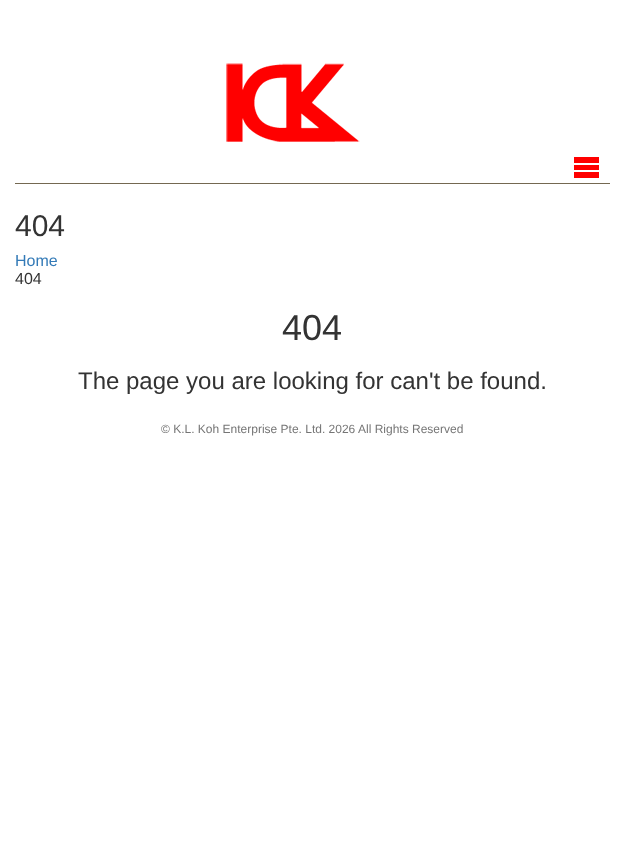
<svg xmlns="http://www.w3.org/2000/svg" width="625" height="867">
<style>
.a{font:30px Liberation Sans;fill:#333}
.b{font:16px Liberation Sans;fill:#337ab7}
.c{font:16px Liberation Sans;fill:#333}
.d{font:36px Liberation Sans;fill:#333}
.e{font:24px Liberation Sans;fill:#333}
.f{font:12px Liberation Sans;fill:#757575}
</style>
<rect width="100%" height="100%" fill="#fff"/>
<image href="1.png" x="226" y="63" width="134" height="79"/>
<image href="2.png" x="574" y="157" width="25" height="21"/>
<path fill="#746851" d="M15 183h595v1H15z"/>
<text class="a" x="15" y="236">404</text>
<text class="b" x="15" y="266">Home</text>
<text class="c" x="15" y="284">404</text>
<text class="d" x="282" y="340">404</text>
<text class="e" x="78" y="389">The page you are looking for can't be found.</text>
<text class="f" x="161" y="433">© K.L. Koh Enterprise Pte. Ltd. 2026 All Rights Reserved</text>
</svg>
